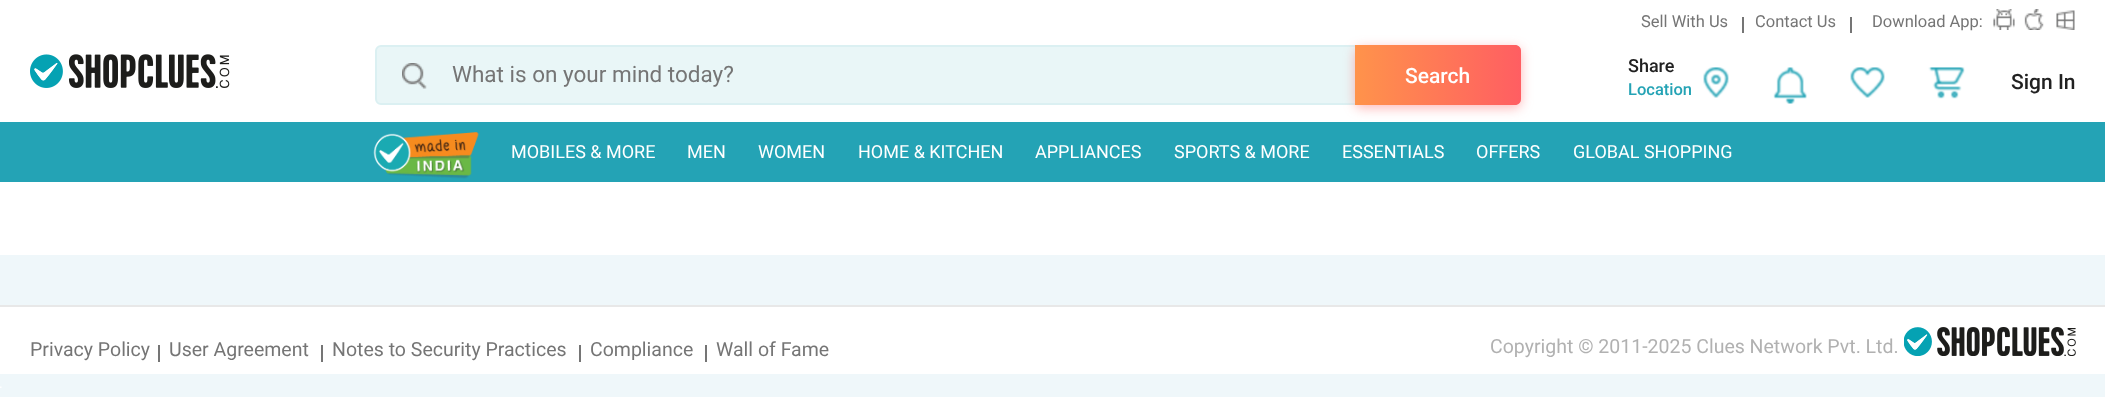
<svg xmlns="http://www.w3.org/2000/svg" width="2105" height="397">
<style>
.a{font:16.5px Roboto;fill:#757575}
.b{font:22.5px Roboto;fill:#757575}
.c{font:500 21px Roboto;fill:#fff}
.d{font:500 18px Roboto;fill:#212121}
.e{font:500 16.5px Roboto;fill:#24a3b5}
.f{font:500 21px Roboto;fill:#212121}
.g{font:18px Roboto;fill:#fff}
.h{font:19.5px Roboto;fill:#757575}
.i{font:19.5px Roboto;fill:#b1b1b1}
</style>
<defs>
<linearGradient id="g1" gradientUnits="userSpaceOnUse" x1="1355" y1="75" x2="1521" y2="75"><stop offset="0" stop-color="#ff934b"/><stop offset="1" stop-color="#ff5e62"/></linearGradient>
</defs>
<rect width="100%" height="100%" fill="#eff7fa"/>
<path fill="#fff" d="M0 0h2105v122H0z"/>
<path fill="#757575" d="M1742 17h2v16H1742z"/>
<path fill="#757575" d="M1850 17h2v16H1850z"/>
<image href="1.png" x="1993" y="9" width="22" height="21"/>
<image href="2.png" x="2024" y="9" width="20" height="21"/>
<image href="3.png" x="2056" y="10" width="19" height="20"/>
<image href="4.png" x="30" y="54" width="200" height="34"/>
<rect fill="#e9f6f7" stroke="#dbf0f2" stroke-width="2" x="376" y="46" width="1144" height="58" rx="5"/>
<image href="5.png" x="402" y="63" width="25" height="26"/>
<path fill="#24a3b5" d="M0 122h2105v60H0z"/>
<rect fill="#ff616275" filter="blur(6px)" x="1355" y="48" width="166" height="60" rx="6"/>
<path fill="url(#g1)" d="M1355 45h160c3.5 0 6 2.5 6 6v48c0 3.5-2.5 6-6 6h-160z"/>
<image href="6.png" x="1703" y="67" width="26" height="31"/>
<image href="7.png" x="1773" y="67" width="34" height="37"/>
<image href="8.png" x="1850" y="67" width="35" height="31"/>
<image href="9.png" x="1928" y="67" width="37" height="32"/>
<image href="10.png" x="373" y="132" width="106" height="47"/>
<path fill="#fff" d="M0 182h2105v73H0z"/>
<path fill="#fff" d="M0 307h2105v67H0z"/>
<path fill="#e8e8e8" d="M0 305h2105v2H0z"/>
<path fill="#757575" d="M158 345h2v17H158z"/>
<path fill="#757575" d="M321 345h2v17H321z"/>
<path fill="#757575" d="M579 345h2v17H579z"/>
<path fill="#757575" d="M705 345h2v17H705z"/>
<image href="11.png" x="1904" y="327" width="172" height="29"/>
<image href="12.png" x="0" y="386" width="2" height="2"/>
<text class="a" x="1641" y="27">Sell With Us</text>
<text class="a" x="1755" y="27">Contact Us</text>
<text class="a" x="1872" y="27">Download App:</text>
<text class="b" x="452" y="82">What is on your mind today?</text>
<text class="c" x="1405" y="83">Search</text>
<text class="d" x="1628" y="72">Share</text>
<text class="e" x="1628" y="95">Location</text>
<text class="f" x="2011" y="89">Sign In</text>
<text class="g" x="511" y="158">MOBILES &amp; MORE</text>
<text class="g" x="687" y="158">MEN</text>
<text class="g" x="758" y="158">WOMEN</text>
<text class="g" x="858" y="158">HOME &amp; KITCHEN</text>
<text class="g" x="1035" y="158">APPLIANCES</text>
<text class="g" x="1174" y="158">SPORTS &amp; MORE</text>
<text class="g" x="1342" y="158">ESSENTIALS</text>
<text class="g" x="1476" y="158">OFFERS</text>
<text class="g" x="1573" y="158">GLOBAL SHOPPING</text>
<text class="h" x="30" y="356">Privacy Policy</text>
<text class="h" x="169" y="356">User Agreement</text>
<text class="h" x="332" y="356">Notes to Security Practices</text>
<text class="h" x="590" y="356">Compliance</text>
<text class="h" x="716" y="356">Wall of Fame</text>
<text class="i" x="1490" y="353">Copyright © 2011-2025 Clues Network Pvt. Ltd.</text>
</svg>
